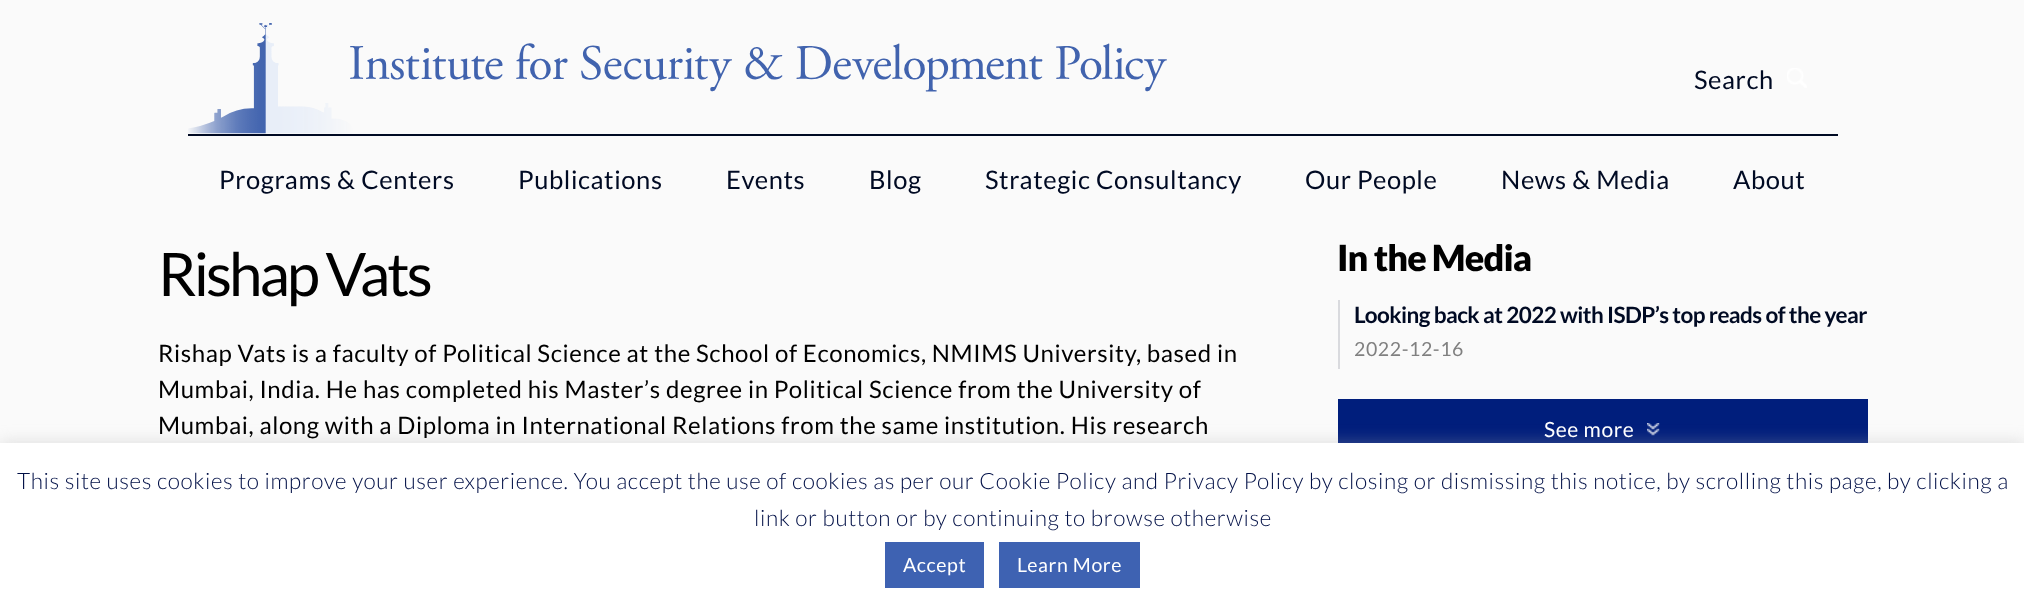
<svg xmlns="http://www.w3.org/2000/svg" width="2024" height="613">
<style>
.a{font:25.5px Lato;letter-spacing:0.6px;fill:#000a23}
.b{font:60px Lato;letter-spacing:-3px;fill:#000}
.c{font:24px Lato;letter-spacing:0.6px;fill:#000}
.d{font:900 36px Lato;letter-spacing:-0.9px;fill:#000}
.e{font:bold 22.5px Lato;letter-spacing:-0.55px;fill:#000a23}
.f{font:19.5px Lato;letter-spacing:0.6px;fill:#808080}
.g{font:21px Lato;letter-spacing:0.6px;fill:#fff}
.h{font:300 22.5px Lato;letter-spacing:0.6px;fill:#000f46}
.i{font:19.5px Lato;letter-spacing:0.6px;fill:#fff}
</style>
<rect width="100%" height="100%" fill="#fafafa"/>
<path fill="#000a23" d="M188 134h1650v2H188z"/>
<image href="1.png" x="188" y="23" width="979" height="111"/>
<image href="2.png" x="1787" y="68" width="20" height="20"/>
<path fill="#d9dade" d="M1338 300h2v69H1338z"/>
<path fill="#001e7c" d="M1338 399h530v44H1338z"/>
<image href="3.png" x="1647" y="423" width="13" height="13"/>
<path fill="#acabab4d" filter="blur(7.5px)" d="M0 441h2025v171H0z"/>
<path fill="#fff" d="M0 443h2024v170H0z"/>
<path fill="#3e62b2" d="M885 542h99v46H885z"/>
<path fill="#3e62b2" d="M999 542h141v46H999z"/>
<text class="a" x="1694" y="89">Search</text>
<text class="a" x="219" y="189">Programs &amp; Centers</text>
<text class="a" x="518" y="189">Publications</text>
<text class="a" x="726" y="189">Events</text>
<text class="a" x="869" y="189">Blog</text>
<text class="a" x="985" y="189">Strategic Consultancy</text>
<text class="a" x="1305" y="189">Our People</text>
<text class="a" x="1501" y="189">News &amp; Media</text>
<text class="a" x="1733" y="189">About</text>
<text class="b" x="158" y="296">Rishap Vats</text>
<text class="c" x="158" y="362">Rishap Vats is a faculty of Political Science at the School of Economics, NMIMS University, based in</text>
<text class="c" x="158" y="398">Mumbai, India. He has completed his Master’s degree in Political Science from the University of</text>
<text class="c" x="158" y="434">Mumbai, along with a Diploma in International Relations from the same institution. His research</text>
<text class="d" x="1337" y="271">In the Media</text>
<text class="e" x="1354" y="323">Looking back at 2022 with ISDP’s top reads of the year</text>
<text class="f" x="1354" y="356">2022-12-16</text>
<text class="g" x="1544" y="437">See more</text>
<text class="h" x="17" y="489">This site uses cookies to improve your user experience. You accept the use of cookies as per our Cookie Policy and Privacy Policy by closing or dismissing this notice, by scrolling this page, by clicking a</text>
<text class="h" x="754" y="526">link or button or by continuing to browse otherwise</text>
<text class="i" x="903" y="572">Accept</text>
<text class="i" x="1017" y="572">Learn More</text>
</svg>
